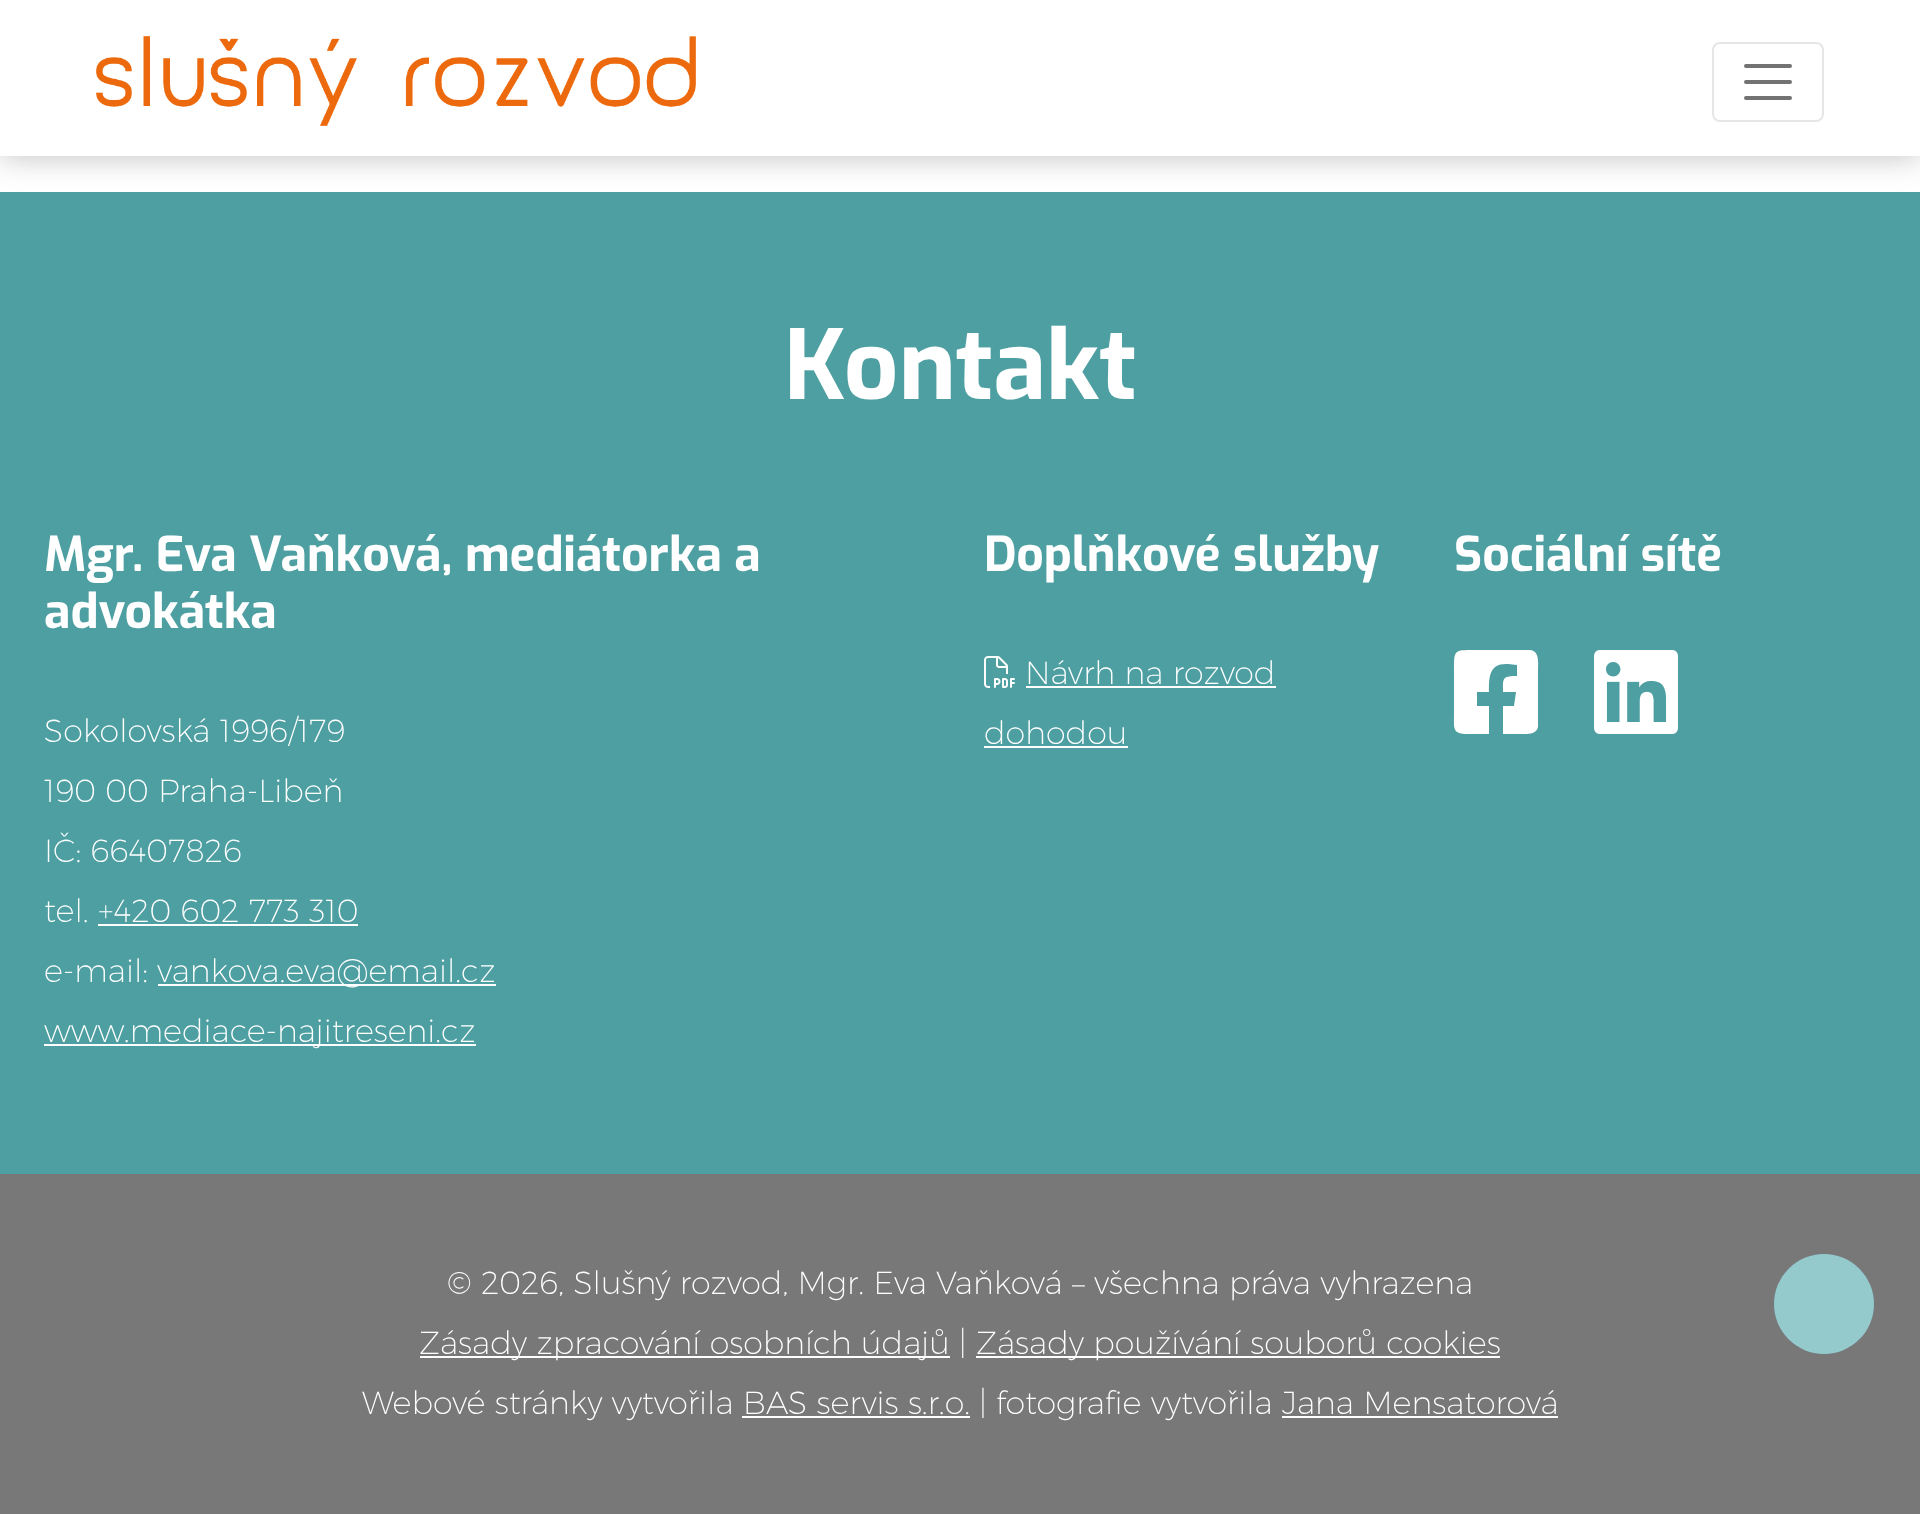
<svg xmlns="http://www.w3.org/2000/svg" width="1920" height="1514">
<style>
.a{font:bold 96px Exo;fill:#fff}
.b{font:bold 48px Exo;fill:#fff}
.c{font:200 32px Montserrat;fill:#fff}
</style>
<rect width="100%" height="100%" fill="#fff"/>
<path fill="#4e9fa2" d="M0 192h1920v982H0z"/>
<path fill="#c0bfbfe6" filter="blur(15px)" d="M0 2h1920v156H0z"/>
<path fill="#fff" d="M0 0h1920v156H0z"/>
<image href="1.png" x="96" y="36" width="600" height="90"/>
<rect fill="none" stroke="#e6e6e6" stroke-width="2" x="1713" y="43" width="110" height="78" rx="7"/>
<path fill="none" stroke="#737373" stroke-width="4" stroke-linecap="round" d="M1746 66h44m-44 16h44m-44 16h44"/>
<path fill="#fff" d="M98 924h260v2H98z"/>
<path fill="#fff" d="M158 984h338v2H158z"/>
<path fill="#fff" d="M44 1044h432v2H44z"/>
<image href="2.png" x="984" y="656" width="31" height="32"/>
<path fill="#fff" d="M1026 686h250v2H1026z"/>
<path fill="#fff" d="M984 746h144v2H984z"/>
<path fill="#fff" d="M1529 650h-55c-20 0-20 0-20 20v44c0 14-2 20 13 20h22v-28h-12v-14h12c0-15 0-29 19-28l9 1v11c-15 0-14 2-14 16h13l-2 14h-11v28h17c7 0 16 1 18-7v-57c0-7 2-20-9-20z"/>
<image href="3.png" x="1594" y="650" width="84" height="84"/>
<path fill="#787878" d="M0 1174h1920v340H0z"/>
<path fill="#fff" d="M420 1356h530v2H420z"/>
<path fill="#fff" d="M976 1356h524v2H976z"/>
<path fill="#fff" d="M742 1416h228v2H742z"/>
<path fill="#fff" d="M1282 1416h276v2H1282z"/>
<circle fill="#95cacc" cx="1824" cy="1304" r="50"/>
<text class="a" x="784" y="399">Kontakt</text>
<text class="b" x="44" y="571">Mgr. Eva Vaňková, mediátorka a</text>
<text class="b" x="44" y="628">advokátka</text>
<text class="c" x="44" y="742">Sokolovská 1996/179</text>
<text class="c" x="44" y="802">190 00 Praha-Libeň</text>
<text class="c" x="44" y="862">IČ: 66407826</text>
<text class="c" x="44" y="922">tel. +420 602 773 310</text>
<text class="c" x="44" y="982">e-mail:</text>
<text class="c" x="157" y="982">vankova.eva@email.cz</text>
<text class="c" x="44" y="1042">www.mediace-najitreseni.cz</text>
<text class="b" x="984" y="571">Doplňkové služby</text>
<text class="c" x="1025" y="684">Návrh na rozvod</text>
<text class="c" x="984" y="744">dohodou</text>
<text class="b" x="1454" y="571">Sociální sítě</text>
<text class="c" x="447" y="1294">© 2026, Slušný rozvod, Mgr. Eva Vaňková – všechna práva vyhrazena</text>
<text class="c" x="419" y="1354">Zásady zpracování osobních údajů |</text>
<text class="c" x="976" y="1354">Zásady používání souborů cookies</text>
<text class="c" x="362" y="1414">Webové stránky vytvořila BAS servis s.r.o. | fotografie vytvořila Jana Mensatorová</text>
</svg>
